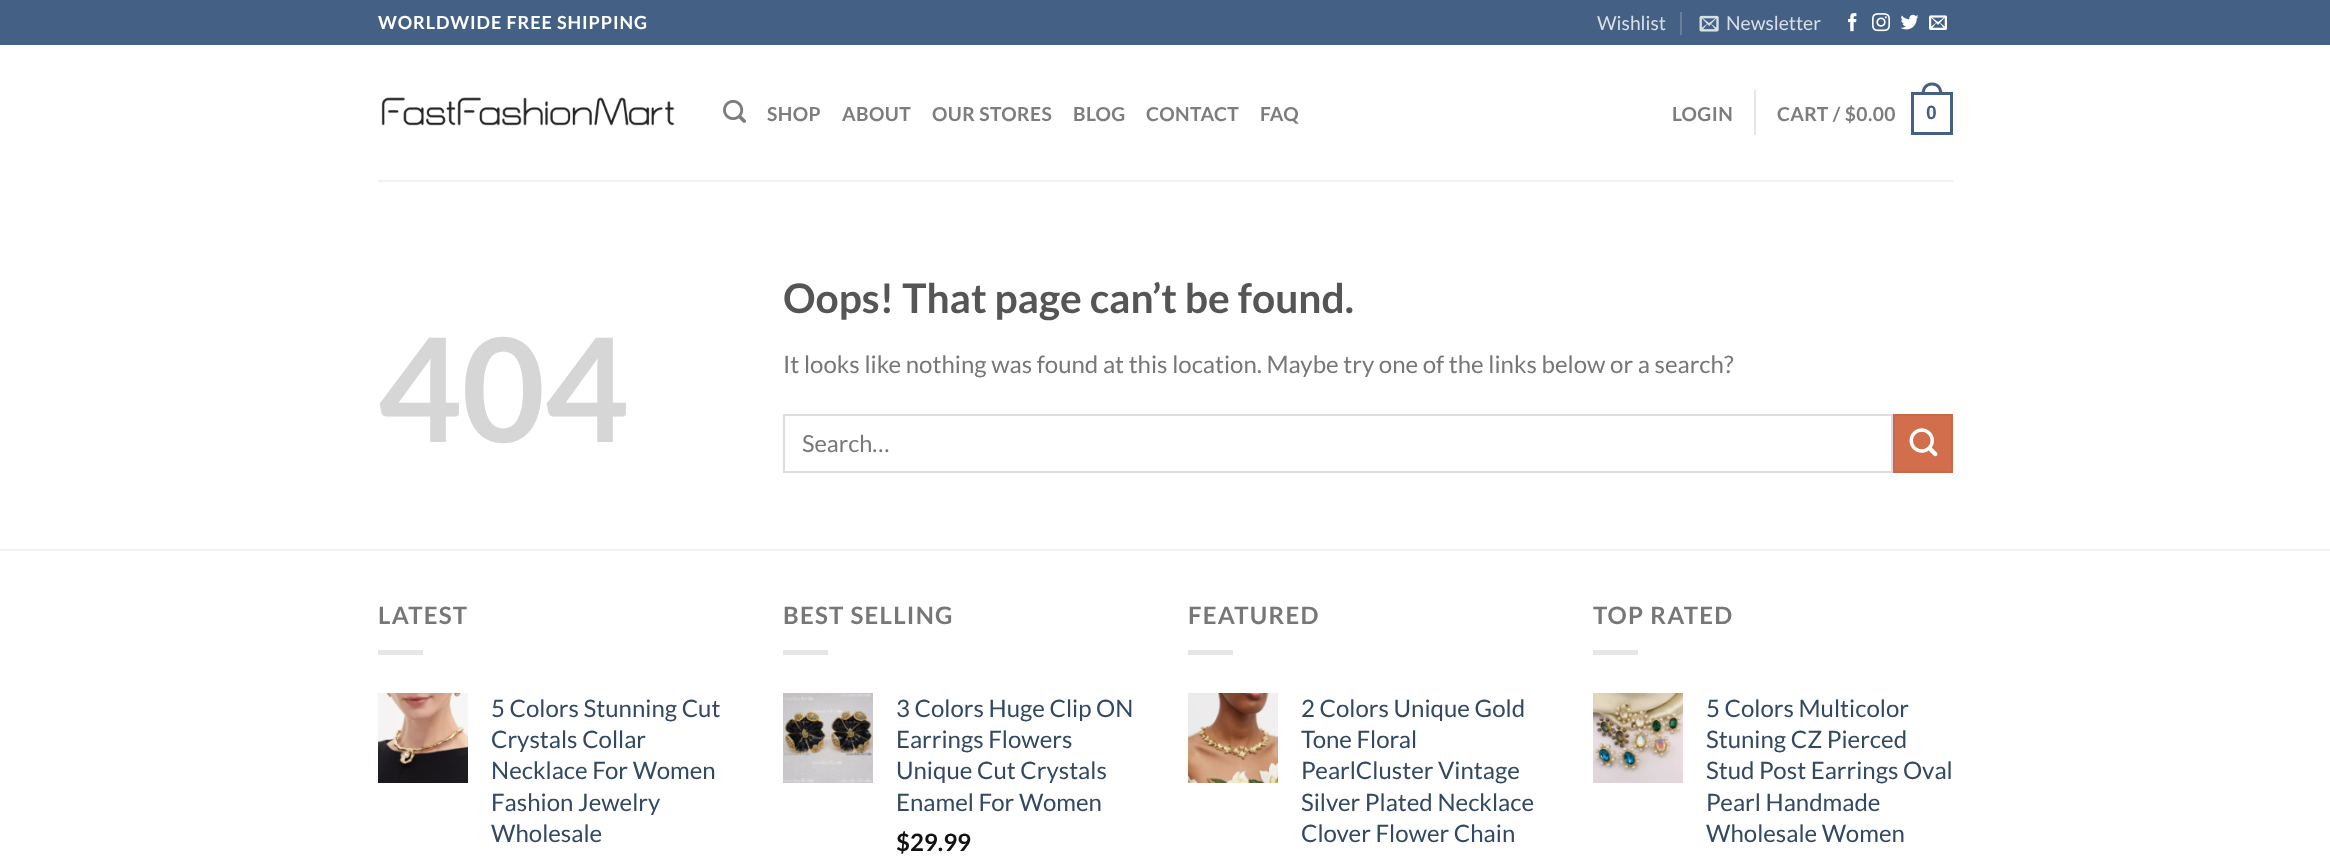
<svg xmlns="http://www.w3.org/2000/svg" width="2330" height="857">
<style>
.a{font:bold 18px Lato;letter-spacing:0.9px;fill:#fff}
.b{font:19.25px Lato;fill:#dadfe6}
.c{font:bold 19.25px Lato;letter-spacing:0.4px;fill:#7d7d7d}
.d{font:bold 19.25px Liberation Sans;letter-spacing:0.4px;fill:#446084}
.e{font:bold 144px Lato;fill:#d6d6d6}
.f{font:bold 40.75px Lato;fill:#555}
.g{font:24px Lato;fill:#777}
.h{font:23.5px Lato;fill:#777}
.i{font:bold 24px Lato;letter-spacing:1.25px;fill:#777}
.j{font:24px Lato;fill:#334862}
.k{font:bold 24px Lato;fill:#111}
</style>
<rect width="100%" height="100%" fill="#fff"/>
<path fill="#446084" d="M0 0h2330v45H0z"/>
<path fill="#69809d" d="M1680 12h2v23H1680z"/>
<image href="1.png" x="1699" y="15" width="20" height="17"/>
<image href="2.png" x="1848" y="13" width="9" height="19"/>
<image href="3.png" x="1872" y="13" width="18" height="19"/>
<image href="4.png" x="1900" y="14" width="19" height="16"/>
<image href="5.png" x="1929" y="15" width="18" height="15"/>
<image href="6.png" x="381" y="97" width="294" height="29"/>
<image href="7.png" x="723" y="99" width="23" height="24"/>
<path fill="#e6e6e6" d="M1754 90h2v45H1754z"/>
<path fill="none" stroke="#446084" stroke-width="3" d="M1912.5 93.5h39v40H1912.5z"/>
<path fill="#446084" fill-rule="evenodd" d="M1932 82.5c7 0 10.5 5.5 10.5 12h-21c0-6.5 3.5-12 10.5-12zm0 3c5.5 0 7.5 4.5 7.5 9h-15c0-4.5 2-9 7.5-9z"/>
<path fill="#f1f1f1" d="M378 180h1575v2H378z"/>
<path fill="none" stroke="#ddd" stroke-width="2" d="M784 415h1108v57H784z"/>
<path fill="#d26e4b" stroke="#c86947" stroke-width="2" d="M1894 415h58v57H1894z"/>
<image href="8.png" x="1909" y="428" width="29" height="29"/>
<path fill="#f2f2f2" d="M0 549h2330v2H0z"/>
<path fill="#e6e6e6" d="M378 650h45v5H378z"/>
<image href="9.png" x="378" y="693" width="90" height="90"/>
<path fill="#e6e6e6" d="M783 650h45v5H783z"/>
<image href="10.png" x="783" y="693" width="90" height="90"/>
<path fill="#e6e6e6" d="M1188 650h45v5H1188z"/>
<image href="11.png" x="1188" y="693" width="90" height="90"/>
<path fill="#e6e6e6" d="M1593 650h45v5H1593z"/>
<image href="12.png" x="1593" y="693" width="90" height="90"/>
<text class="a" x="378" y="29">WORLDWIDE FREE SHIPPING</text>
<text class="b" x="1597" y="30">Wishlist</text>
<text class="b" x="1726" y="30">Newsletter</text>
<text class="c" x="767" y="121">SHOP</text>
<text class="c" x="842" y="121">ABOUT</text>
<text class="c" x="932" y="121">OUR STORES</text>
<text class="c" x="1073" y="121">BLOG</text>
<text class="c" x="1146" y="121">CONTACT</text>
<text class="c" x="1260" y="121">FAQ</text>
<text class="c" x="1672" y="121">LOGIN</text>
<text class="c" x="1777" y="121">CART / $0.00</text>
<text class="d" x="1926" y="119">0</text>
<text class="e" x="378" y="442">404</text>
<text class="f" x="783" y="313">Oops! That page can’t be found.</text>
<text class="g" x="783" y="373">It looks like nothing was found at this location. Maybe try one of the links below or a search?</text>
<text class="h" x="802" y="452">Search…</text>
<text class="i" x="378" y="624">LATEST</text>
<text class="j" x="491" y="717">5 Colors Stunning Cut</text>
<text class="j" x="491" y="748">Crystals Collar</text>
<text class="j" x="491" y="779">Necklace For Women</text>
<text class="j" x="491" y="811">Fashion Jewelry</text>
<text class="j" x="491" y="842">Wholesale</text>
<text class="i" x="783" y="624">BEST SELLING</text>
<text class="j" x="896" y="717">3 Colors Huge Clip ON</text>
<text class="j" x="896" y="748">Earrings Flowers</text>
<text class="j" x="896" y="779">Unique Cut Crystals</text>
<text class="j" x="896" y="811">Enamel For Women</text>
<text class="k" x="896" y="851">$29.99</text>
<text class="i" x="1188" y="624">FEATURED</text>
<text class="j" x="1301" y="717">2 Colors Unique Gold</text>
<text class="j" x="1301" y="748">Tone Floral</text>
<text class="j" x="1301" y="779">PearlCluster Vintage</text>
<text class="j" x="1301" y="811">Silver Plated Necklace</text>
<text class="j" x="1301" y="842">Clover Flower Chain</text>
<text class="i" x="1593" y="624">TOP RATED</text>
<text class="j" x="1706" y="717">5 Colors Multicolor</text>
<text class="j" x="1706" y="748">Stuning CZ Pierced</text>
<text class="j" x="1706" y="779">Stud Post Earrings Oval</text>
<text class="j" x="1706" y="811">Pearl Handmade</text>
<text class="j" x="1706" y="842">Wholesale Women</text>
</svg>
